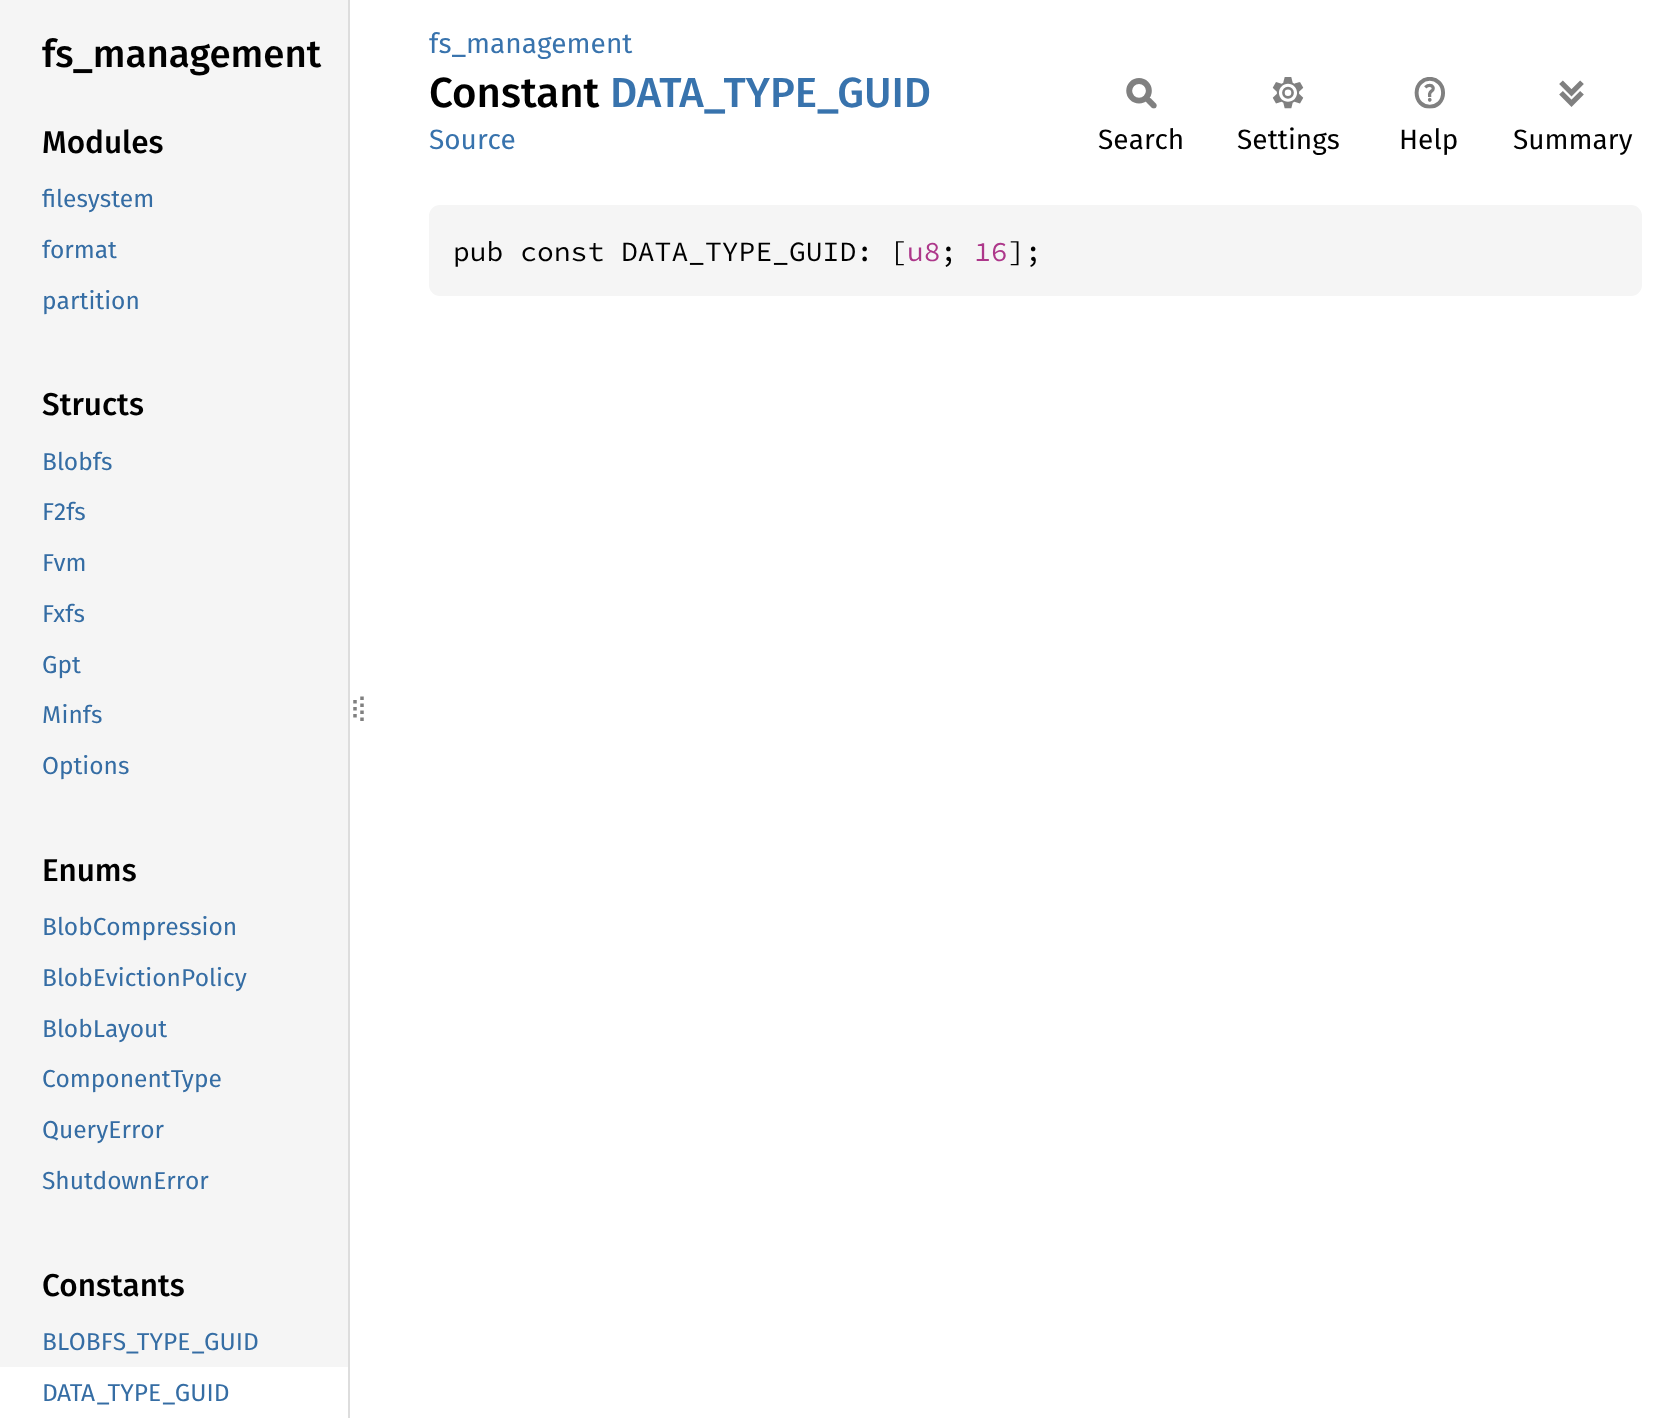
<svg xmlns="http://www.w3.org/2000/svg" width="1667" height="1418">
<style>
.a{font:500 38.5px Fira Sans;fill:#000}
.b{font:500 31.5px Fira Sans;fill:#000}
.c{font:24.5px Fira Sans;fill:#356da4}
.d{font:28px Fira Sans;fill:#3873ad}
.e{font:500 42px Fira Sans;fill:#000}
.f{font:500 42px Fira Sans;fill:#3873ad}
.g{font:28px Fira Sans;fill:#000}
.h{font:28px Source Code Pro;fill:#000}
.i{font:28px Source Code Pro;fill:#ad378a}
</style>
<rect width="100%" height="100%" fill="#fff"/>
<path fill="#f5f5f5" d="M0 0h348v1367H0z"/>
<path fill="#ddd" d="M348 0h2v1418H348z"/>
<path fill="none" stroke="#808080" stroke-width="3.5" d="M355 700v3.5m0 3.5v3.5m0 3.5v3.5"/>
<path fill="none" stroke="#808080" stroke-width="3.5" stroke-dasharray="3.5 3.5" d="M362 696.5v28"/>
<image href="1.png" x="1126" y="78" width="31" height="31"/>
<image href="2.png" x="1272" y="77" width="32" height="32"/>
<image href="3.png" x="1414" y="77" width="31" height="32"/>
<image href="4.png" x="1559" y="80" width="25" height="27"/>
<rect fill="#f5f5f5" x="429" y="205" width="1213" height="91" rx="11"/>
<text class="a" x="42" y="67">fs_management</text>
<text class="b" x="42" y="153">Modules</text>
<text class="c" x="42" y="207">filesystem</text>
<text class="c" x="42" y="258">format</text>
<text class="c" x="42" y="309">partition</text>
<text class="b" x="42" y="415">Structs</text>
<text class="c" x="42" y="470">Blobfs</text>
<text class="c" x="42" y="520">F2fs</text>
<text class="c" x="42" y="571">Fvm</text>
<text class="c" x="42" y="622">Fxfs</text>
<text class="c" x="42" y="673">Gpt</text>
<text class="c" x="42" y="723">Minfs</text>
<text class="c" x="42" y="774">Options</text>
<text class="b" x="42" y="881">Enums</text>
<text class="c" x="42" y="935">BlobCompression</text>
<text class="c" x="42" y="986">BlobEvictionPolicy</text>
<text class="c" x="42" y="1037">BlobLayout</text>
<text class="c" x="42" y="1087">ComponentType</text>
<text class="c" x="42" y="1138">QueryError</text>
<text class="c" x="42" y="1189">ShutdownError</text>
<text class="b" x="42" y="1296">Constants</text>
<text class="c" x="42" y="1350">BLOBFS_TYPE_GUID</text>
<text class="c" x="42" y="1401">DATA_TYPE_GUID</text>
<text class="d" x="429" y="53">fs_management</text>
<text class="e" x="429" y="107">Constant</text>
<text class="f" x="610" y="107">DATA_TYPE_GUID</text>
<text class="d" x="429" y="149">Source</text>
<text class="g" x="1098" y="149">Search</text>
<text class="g" x="1237" y="149">Settings</text>
<text class="g" x="1399" y="149">Help</text>
<text class="g" x="1513" y="149">Summary</text>
<text class="h" x="453" y="261">pub const DATA_TYPE_GUID: [</text>
<text class="i" x="907" y="261">u8</text>
<text class="h" x="940" y="261">;</text>
<text class="i" x="974" y="261">16</text>
<text class="h" x="1008" y="261">];</text>
</svg>
